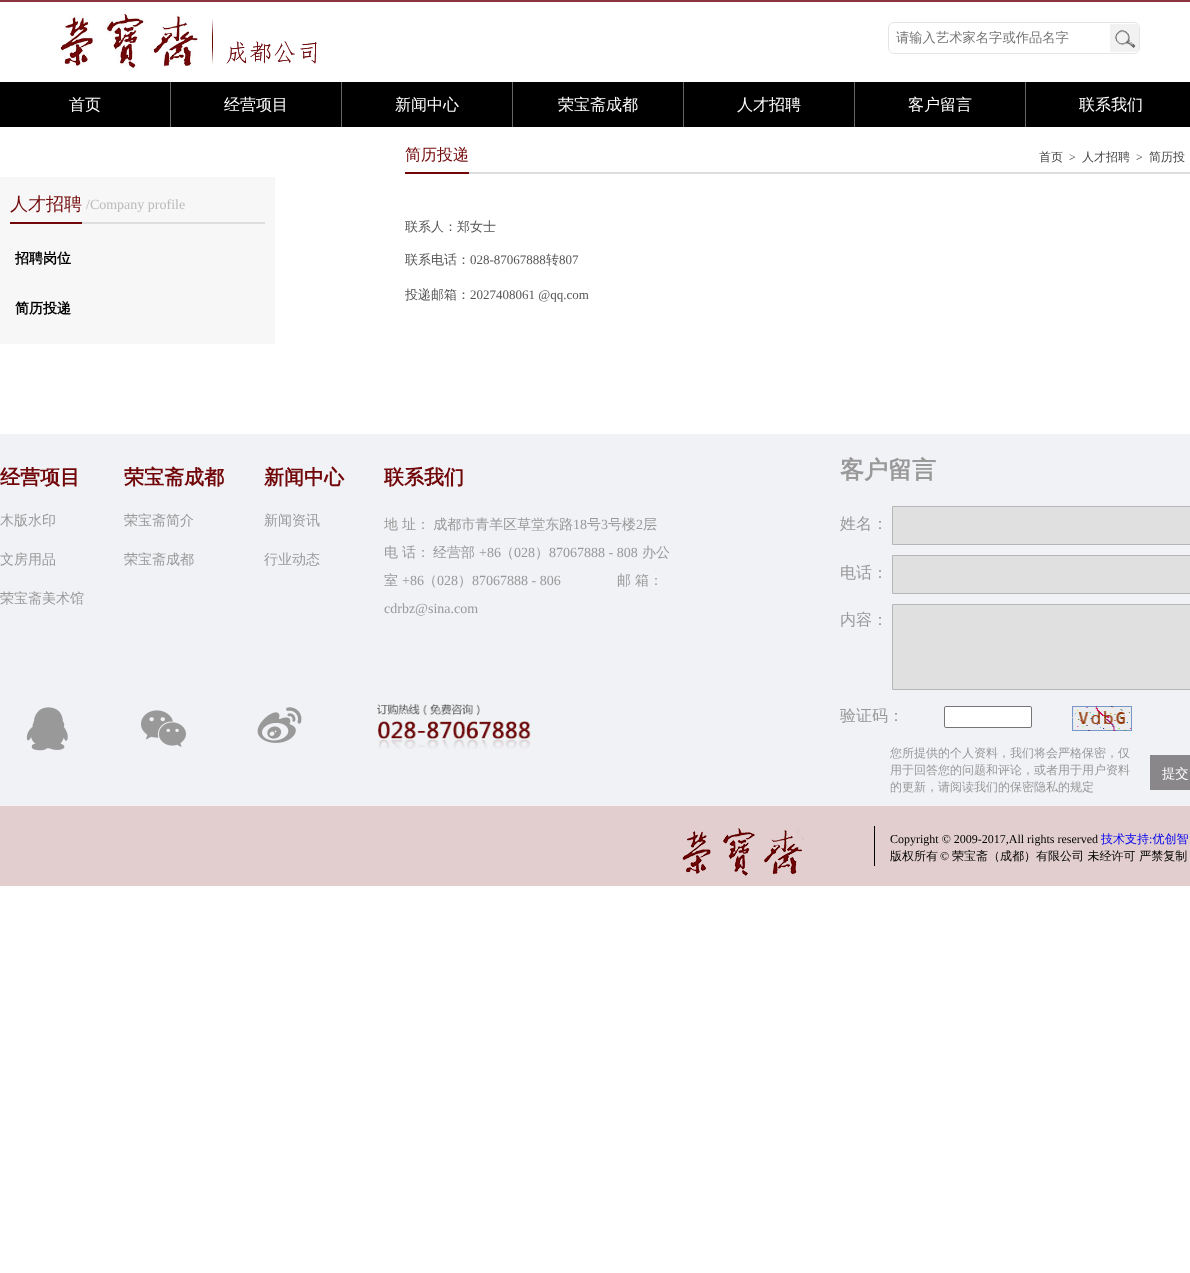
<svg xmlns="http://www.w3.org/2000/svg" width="1190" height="1273">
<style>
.a{font:500 13.3px WenQuanYi Zen Hei;fill:#757575}
.b{font:500 16px WenQuanYi Zen Hei;fill:#fff}
.c{font:500 18px WenQuanYi Zen Hei;fill:#710709}
.d{font:14px Liberation Serif;fill:#bbb}
.e{font:bold 14px WenQuanYi Zen Hei;fill:#000}
.f{font:500 16px WenQuanYi Zen Hei;fill:#710709}
.g{font:500 12px WenQuanYi Zen Hei;fill:#444}
.h{font:12px Liberation Serif;fill:#444}
.i{font:500 13px WenQuanYi Zen Hei;fill:#555}
.j{font:13px Liberation Serif;fill:#555}
.k{font:bold 20px WenQuanYi Zen Hei;fill:#710709}
.l{font:500 14px WenQuanYi Zen Hei;fill:#999}
.m{font:14px Liberation Serif;fill:#999}
.n{font:bold 24px WenQuanYi Zen Hei;fill:#999}
.o{font:500 16px WenQuanYi Zen Hei;fill:#999}
.p{font:500 12px WenQuanYi Zen Hei;fill:#999}
.q{font:500 13.3px WenQuanYi Zen Hei;fill:#fff}
.r{font:12px Liberation Serif;fill:#000}
.s{font:500 12px WenQuanYi Zen Hei;fill:#00e}
.t{font:12px Liberation Serif;fill:#00e}
.u{font:500 12px WenQuanYi Zen Hei;fill:#000}
</style>
<rect width="100%" height="100%" fill="#fff"/>
<path fill="#8b343d" d="M0 0h1190v2H0z"/>
<image href="1.png" x="60" y="13" width="257" height="57"/>
<rect fill="none" stroke="#e5e5e5" x="888.5" y="22.5" width="251" height="31" rx="5.5"/>
<image href="2.png" x="1110" y="24" width="29" height="28"/>
<path fill="#000" d="M0 82h1190v45H0z"/>
<path fill="#666" d="M170 82h1v45H170z"/>
<path fill="#666" d="M341 82h1v45H341z"/>
<path fill="#666" d="M512 82h1v45H512z"/>
<path fill="#666" d="M683 82h1v45H683z"/>
<path fill="#666" d="M854 82h1v45H854z"/>
<path fill="#666" d="M1025 82h1v45H1025z"/>
<path fill="#f7f7f7" d="M0 177h275v167H0z"/>
<path fill="#ddd" d="M82 222h183v2H82z"/>
<path fill="#710709" d="M10 222h72v2H10z"/>
<path fill="#ddd" d="M469 172h721v2H469z"/>
<path fill="#710709" d="M405 172h64v2H405z"/>
<path fill="#f1f2f6" d="M0 434h1190v372H0z"/>
<image href="3.png" x="26" y="707" width="42" height="44"/>
<image href="4.png" x="141" y="710" width="45" height="37"/>
<image href="5.png" x="257" y="707" width="45" height="36"/>
<image href="6.png" x="377" y="699" width="157" height="50"/>
<path fill="#e0e0e0" stroke="#b6b6b6" d="M892.5 506.5h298v38H892.5z"/>
<path fill="#e0e0e0" stroke="#b6b6b6" d="M892.5 555.5h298v38H892.5z"/>
<path fill="#e0e0e0" stroke="#b6b6b6" d="M892.5 604.5h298v85H892.5z"/>
<rect fill="#fff" stroke="#767676" x="944.5" y="706.5" width="87" height="21" rx="1.5"/>
<image href="7.png" x="1072" y="706" width="60" height="25"/>
<path fill="#89878a" d="M1150 755h40v35H1150z"/>
<path fill="#e2cecf" d="M0 806h1190v80H0z"/>
<image href="8.png" x="682" y="828" width="122" height="48"/>
<path fill="#000" d="M874 826h1v40H874z"/>
<text class="a" x="896" y="42">请输入艺术家名字或作品名字</text>
<text class="b" x="69" y="110">首页</text>
<text class="b" x="224" y="110">经营项目</text>
<text class="b" x="395" y="110">新闻中心</text>
<text class="b" x="558" y="110">荣宝斋成都</text>
<text class="b" x="737" y="110">人才招聘</text>
<text class="b" x="908" y="110">客户留言</text>
<text class="b" x="1079" y="110">联系我们</text>
<text class="c" x="10" y="210">人才招聘</text>
<text class="d" x="86" y="209">/Company profile</text>
<text class="e" x="15" y="263">招聘岗位</text>
<text class="e" x="15" y="313">简历投递</text>
<text class="f" x="405" y="160">简历投递</text>
<text class="g" x="1039" y="161">首页</text>
<text class="h" x="1069" y="161">&gt;</text>
<text class="g" x="1082" y="161">人才招聘</text>
<text class="h" x="1136" y="161">&gt;</text>
<text class="g" x="1149" y="161">简历投</text>
<text class="i" x="405" y="231">联系人：郑女士</text>
<text class="i" x="405" y="264">联系电话：</text>
<text class="j" x="470" y="264">028-87067888</text>
<text class="i" x="546" y="264">转</text>
<text class="j" x="559" y="264">807</text>
<text class="i" x="405" y="299">投递邮箱：</text>
<text class="j" x="470" y="299">2027408061 @qq.com</text>
<text class="k" x="0" y="484">经营项目</text>
<text class="l" x="0" y="525">木版水印</text>
<text class="l" x="0" y="564">文房用品</text>
<text class="l" x="0" y="603">荣宝斋美术馆</text>
<text class="k" x="124" y="484">荣宝斋成都</text>
<text class="l" x="124" y="525">荣宝斋简介</text>
<text class="l" x="124" y="564">荣宝斋成都</text>
<text class="k" x="264" y="484">新闻中心</text>
<text class="l" x="264" y="525">新闻资讯</text>
<text class="l" x="264" y="564">行业动态</text>
<text class="k" x="384" y="484">联系我们</text>
<text class="l" x="384" y="529">地</text>
<text class="l" x="402" y="529" word-spacing="-1">址： 成都市青羊区草堂东路</text>
<text class="m" x="573" y="529">18</text>
<text class="l" x="587" y="529">号</text>
<text class="m" x="601" y="529">3</text>
<text class="l" x="608" y="529">号楼</text>
<text class="m" x="636" y="529">2</text>
<text class="l" x="643" y="529">层</text>
<text class="l" x="384" y="557">电</text>
<text class="l" x="402" y="557">话：</text>
<text class="l" x="433" y="557">经营部</text>
<text class="m" x="479" y="557">+86</text>
<text class="l" x="500" y="557">（</text>
<text class="m" x="514" y="557">028</text>
<text class="l" x="535" y="557">）</text>
<text class="m" x="549" y="557">87067888 - 808</text>
<text class="l" x="642" y="557">办公</text>
<text class="l" x="384" y="585">室</text>
<text class="m" x="402" y="585">+86</text>
<text class="l" x="423" y="585">（</text>
<text class="m" x="437" y="585">028</text>
<text class="l" x="458" y="585">）</text>
<text class="m" x="472" y="585">87067888 - 806</text>
<text class="l" x="617" y="585">邮</text>
<text class="l" x="635" y="585">箱：</text>
<text class="m" x="384" y="613">cdrbz@sina.com</text>
<text class="n" x="840" y="478">客户留言</text>
<text class="o" x="840" y="529">姓名：</text>
<text class="o" x="840" y="578">电话：</text>
<text class="o" x="840" y="625">内容：</text>
<text class="o" x="840" y="721">验证码：</text>
<text class="p" x="890" y="757">您所提供的个人资料，我们将会严格保密，仅</text>
<text class="p" x="890" y="774">用于回答您的问题和评论，或者用于用户资料</text>
<text class="p" x="890" y="791">的更新，请阅读我们的保密隐私的规定</text>
<text class="q" x="1162" y="778">提交</text>
<text class="r" x="890" y="843">Copyright © 2009-2017,All rights reserved</text>
<text class="s" x="1101" y="843">技术支持 优创智</text>
<text class="t" x="1149" y="843">:</text>
<text class="u" x="890" y="860">版权所有</text>
<text class="r" x="940" y="860">©</text>
<text class="u" x="952" y="860">荣宝斋（成都）有限公司 未经许可 严禁复制</text>
</svg>
